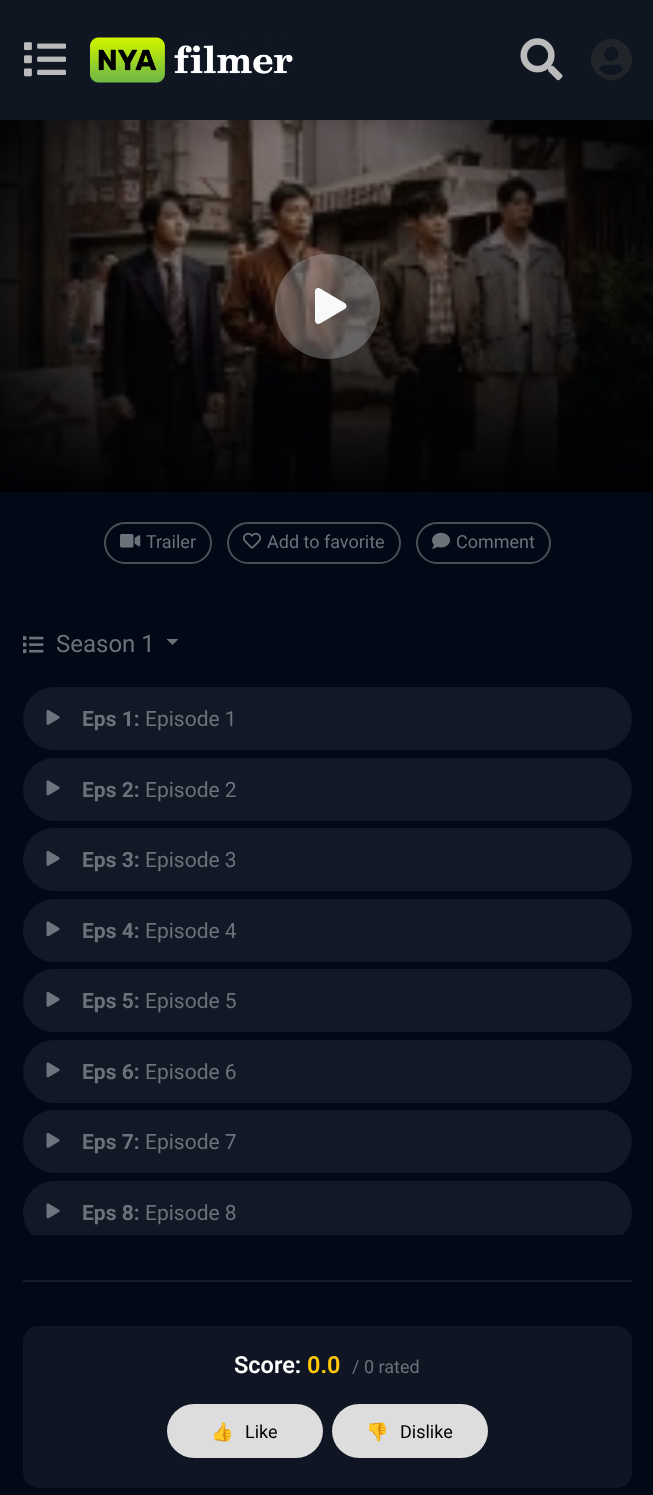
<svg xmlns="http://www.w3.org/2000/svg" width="653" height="1495">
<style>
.a{font:18px Roboto;fill:#6a727a}
.b{font:24px Roboto;fill:#6a727a}
.c{font:bold 21px Roboto;fill:#6a727a}
.d{font:21px Roboto;fill:#6a727a}
.e{font:600 23.5px Roboto;fill:#fff}
.f{font:600 23.5px Roboto;fill:#ffc80a}
.g{font:18px Noto Color Emoji;fill:#000}
.h{font:18px Roboto;fill:#000}
</style>
<defs>
<clipPath id="clip1"><path d="M591 33h41v54H591z"/></clipPath>
<clipPath id="clip2"><path d="M15 687h624v548H15z"/></clipPath>
</defs>
<rect width="100%" height="100%" fill="#020916"/>
<path fill="#0f1622" d="M0 0h653v120H0z"/>
<image href="1.png" x="24" y="42" width="42" height="35"/>
<image href="2.png" x="90" y="37" width="203" height="46"/>
<image href="3.png" x="520" y="38" width="43" height="43"/>
<g clip-path="url(#clip1)">
<path fill="#212529" d="M597 45c19-19 48 10 29 29c-19 19-48-10-29-29zm19 4c-6-7-16 4-10 10c7 7 17-4 10-10zm-17 20c7 8 18 8 24 0c-3-6-7-4-12-4c-5 0-8-2-12 4z"/>
</g>
<image href="4.png" x="0" y="120" width="653" height="372"/>
<circle fill="#ced4da4d" cx="327.5" cy="306.5" r="52.5"/>
<image href="5.png" x="315" y="288" width="32" height="36"/>
<rect fill="none" stroke="#494f54" stroke-width="2" x="105" y="523" width="106" height="40" rx="20"/>
<image href="6.png" x="120" y="534" width="21" height="14"/>
<rect fill="none" stroke="#494f54" stroke-width="2" x="228" y="523" width="172" height="40" rx="20"/>
<image href="7.png" x="243" y="532" width="18" height="17"/>
<rect fill="none" stroke="#494f54" stroke-width="2" x="417" y="523" width="133" height="40" rx="20"/>
<image href="8.png" x="432" y="532" width="18" height="17"/>
<path fill="#161d29" d="M23 1280h609v2H23z"/>
<image href="9.png" x="23" y="636" width="21" height="18"/>
<path fill="#6a727a" d="M166.5 639h12l-6 6z"/>
<rect fill="#111926" stroke="#111926" stroke-width="2" x="24" y="688" width="607" height="61" rx="30.5"/>
<image href="10.png" x="46" y="709" width="14" height="16"/>
<rect fill="#111926" stroke="#111926" stroke-width="2" x="24" y="759" width="607" height="61" rx="30.5"/>
<image href="11.png" x="46" y="780" width="14" height="16"/>
<rect fill="#111926" stroke="#111926" stroke-width="2" x="24" y="829" width="607" height="61" rx="30.5"/>
<image href="10.png" x="46" y="850" width="14" height="16"/>
<rect fill="#111926" stroke="#111926" stroke-width="2" x="24" y="900" width="607" height="61" rx="30.5"/>
<image href="11.png" x="46" y="921" width="14" height="16"/>
<rect fill="#111926" stroke="#111926" stroke-width="2" x="24" y="970" width="607" height="61" rx="30.5"/>
<image href="10.png" x="46" y="991" width="14" height="16"/>
<rect fill="#111926" stroke="#111926" stroke-width="2" x="24" y="1041" width="607" height="61" rx="30.5"/>
<image href="11.png" x="46" y="1062" width="14" height="16"/>
<rect fill="#111926" stroke="#111926" stroke-width="2" x="24" y="1111" width="607" height="61" rx="30.5"/>
<image href="10.png" x="46" y="1132" width="14" height="16"/>
<g clip-path="url(#clip2)">
<rect fill="#111926" stroke="#111926" stroke-width="2" x="24" y="1182" width="607" height="61" rx="30.5"/>
</g>
<image href="11.png" x="46" y="1203" width="14" height="16"/>
<rect fill="#0f1522" x="23" y="1326" width="609" height="162" rx="15"/>
<rect fill="#ddd" x="167" y="1404" width="156" height="54" rx="27"/>
<rect fill="#ddd" x="332" y="1404" width="156" height="54" rx="27"/>
<text class="a" x="146" y="548">Trailer</text>
<text class="a" x="267" y="548">Add to favorite</text>
<text class="a" x="456" y="548">Comment</text>
<text class="b" x="56" y="652">Season 1</text>
<text class="c" x="82" y="726">Eps 1:</text>
<text class="d" x="145" y="726">Episode 1</text>
<text class="c" x="82" y="797">Eps 2:</text>
<text class="d" x="145" y="797">Episode 2</text>
<text class="c" x="82" y="867">Eps 3:</text>
<text class="d" x="145" y="867">Episode 3</text>
<text class="c" x="82" y="938">Eps 4:</text>
<text class="d" x="145" y="938">Episode 4</text>
<text class="c" x="82" y="1008">Eps 5:</text>
<text class="d" x="145" y="1008">Episode 5</text>
<text class="c" x="82" y="1079">Eps 6:</text>
<text class="d" x="145" y="1079">Episode 6</text>
<text class="c" x="82" y="1149">Eps 7:</text>
<text class="d" x="145" y="1149">Episode 7</text>
<text class="c" x="82" y="1220">Eps 8:</text>
<text class="d" x="145" y="1220">Episode 8</text>
<text class="e" x="234" y="1373">Score:</text>
<text class="f" x="307" y="1373">0.0</text>
<text class="a" x="352" y="1373">/ 0 rated</text>
<text class="g" x="211" y="1438">👍</text>
<text class="h" x="245" y="1438">Like</text>
<text class="g" x="366" y="1438">👎</text>
<text class="h" x="400" y="1438">Dislike</text>
</svg>
